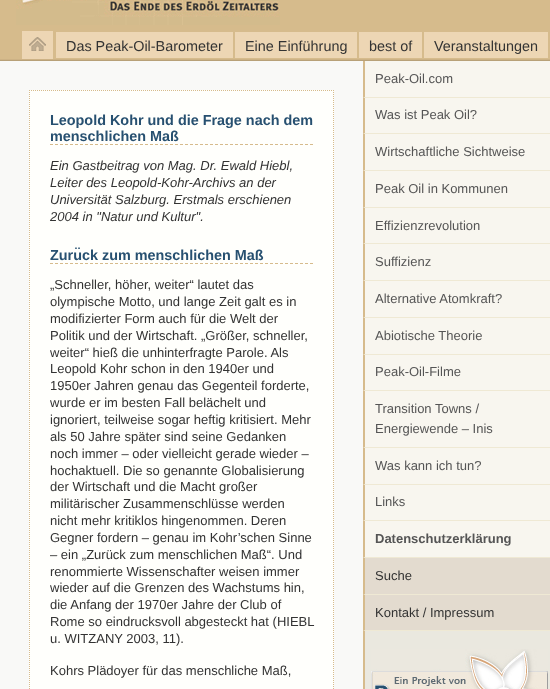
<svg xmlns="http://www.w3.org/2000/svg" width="550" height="689">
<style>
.a{font:14.4px Liberation Sans;fill:#333}
.b{font:bold 14.4px Liberation Sans;fill:#275070}
.c{font:italic 13px Liberation Sans;fill:#333}
.d{font:13px Liberation Sans;fill:#333}
.e{font:13px Liberation Sans;fill:#555}
.f{font:bold 13px Liberation Sans;fill:#555}
</style>
<rect width="100%" height="100%" fill="#eae8df"/>
<image href="1.png" x="0" y="0" width="550" height="26"/>
<image href="2.png" x="16" y="0" width="264" height="25"/>
<path fill="#d6bb8c" d="M0 26h550v33H0z"/>
<image href="3.png" x="0" y="59" width="550" height="2"/>
<path fill="#edd6b4" d="M22 31h31v28H22z"/>
<image href="4.png" x="29" y="37" width="17" height="14"/>
<path fill="#edd6b4" d="M56 32h177v26H56z"/>
<path fill="#edd6b4" d="M235 32h122v26H235z"/>
<path fill="#edd6b4" d="M359 32h63v26H359z"/>
<path fill="#edd6b4" d="M424 32h124v26H424z"/>
<path fill="#f9f9f7" d="M0 61h363v628H0z"/>
<path fill="#fffffc" d="M29 90h305v599H29z"/>
<path fill="none" stroke="#d6bb8c" stroke-dasharray="1 1" d="M29 90.5h305"/>
<path fill="none" stroke="#d6bb8c" stroke-dasharray="1 1" d="M333.5 90v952"/>
<path fill="none" stroke="#d6bb8c" stroke-dasharray="1 1" d="M29.5 90v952"/>
<path fill="none" stroke="#d6bb8c" stroke-dasharray="3 2" d="M50 144.5h263"/>
<path fill="none" stroke="#d6bb8c" stroke-dasharray="3 2" d="M50 263.5h263"/>
<path fill="#f8f6ef" d="M363 61h187v497H363z"/>
<path fill="#efe9d4" d="M550 98h-187l2-1h185z"/>
<path fill="#d6bb8c" d="M363 98v-37h2v36z"/>
<path fill="#efe9d4" d="M550 134h-187l2-1h185z"/>
<path fill="#d6bb8c" d="M363 134v-36h2v35z"/>
<path fill="#efe9d4" d="M550 171h-187l2-1h185z"/>
<path fill="#d6bb8c" d="M363 171v-37h2v36z"/>
<path fill="#efe9d4" d="M550 208h-187l2-1h185z"/>
<path fill="#d6bb8c" d="M363 208v-37h2v36z"/>
<path fill="#efe9d4" d="M550 244h-187l2-1h185z"/>
<path fill="#d6bb8c" d="M363 244v-36h2v35z"/>
<path fill="#efe9d4" d="M550 281h-187l2-1h185z"/>
<path fill="#d6bb8c" d="M363 281v-37h2v36z"/>
<path fill="#efe9d4" d="M550 318h-187l2-1h185z"/>
<path fill="#d6bb8c" d="M363 318v-37h2v36z"/>
<path fill="#efe9d4" d="M550 355h-187l2-1h185z"/>
<path fill="#d6bb8c" d="M363 355v-37h2v36z"/>
<path fill="#efe9d4" d="M550 391h-187l2-1h185z"/>
<path fill="#d6bb8c" d="M363 391v-36h2v35z"/>
<path fill="#efe9d4" d="M550 448h-187l2-1h185z"/>
<path fill="#d6bb8c" d="M363 448v-57h2v56z"/>
<path fill="#efe9d4" d="M550 485h-187l2-1h185z"/>
<path fill="#d6bb8c" d="M363 485v-37h2v36z"/>
<path fill="#efe9d4" d="M550 521h-187l2-1h185z"/>
<path fill="#d6bb8c" d="M363 521v-36h2v35z"/>
<path fill="#efe9d4" d="M550 558h-187l2-1h185z"/>
<path fill="#d6bb8c" d="M363 558v-37h2v36z"/>
<path fill="#e3dbcf" d="M363 558h187v73H363z"/>
<path fill="#efe9d4" d="M550 595h-187l2-1h185z"/>
<path fill="#d6bb8c" d="M363 595v-37h2v36z"/>
<path fill="#efe9d4" d="M550 631h-187l2-1h185z"/>
<path fill="#d6bb8c" d="M363 631v-36h2v35z"/>
<path fill="#d6bb8c" d="M363 631h2v58H363z"/>
<image href="5.png" x="371" y="649" width="177" height="40"/>
<text class="a" x="66" y="51">Das Peak-Oil-Barometer</text>
<text class="a" x="245" y="51">Eine Einführung</text>
<text class="a" x="369" y="51">best of</text>
<text class="a" x="434" y="51">Veranstaltungen</text>
<text class="b" x="50" y="125">Leopold Kohr und die Frage nach dem</text>
<text class="b" x="50" y="141">menschlichen Maß</text>
<text class="c" x="50" y="170">Ein Gastbeitrag von Mag. Dr. Ewald Hiebl,</text>
<text class="c" x="50" y="187">Leiter des Leopold-Kohr-Archivs an der</text>
<text class="c" x="50" y="204">Universität Salzburg. Erstmals erschienen</text>
<text class="c" x="50" y="221">2004 in "Natur und Kultur".</text>
<text class="b" x="50" y="260">Zurück zum menschlichen Maß</text>
<text class="d" x="50" y="289">„Schneller, höher, weiter“ lautet das</text>
<text class="d" x="50" y="306">olympische Motto, und lange Zeit galt es in</text>
<text class="d" x="50" y="323">modifizierter Form auch für die Welt der</text>
<text class="d" x="50" y="340">Politik und der Wirtschaft. „Größer, schneller,</text>
<text class="d" x="50" y="357">weiter“ hieß die unhinterfragte Parole. Als</text>
<text class="d" x="50" y="373">Leopold Kohr schon in den 1940er und</text>
<text class="d" x="50" y="390">1950er Jahren genau das Gegenteil forderte,</text>
<text class="d" x="50" y="407">wurde er im besten Fall belächelt und</text>
<text class="d" x="50" y="424">ignoriert, teilweise sogar heftig kritisiert. Mehr</text>
<text class="d" x="50" y="441">als 50 Jahre später sind seine Gedanken</text>
<text class="d" x="50" y="458">noch immer – oder vielleicht gerade wieder –</text>
<text class="d" x="50" y="475">hochaktuell. Die so genannte Globalisierung</text>
<text class="d" x="50" y="491">der Wirtschaft und die Macht großer</text>
<text class="d" x="50" y="508">militärischer Zusammenschlüsse werden</text>
<text class="d" x="50" y="525">nicht mehr kritiklos hingenommen. Deren</text>
<text class="d" x="50" y="542">Gegner fordern – genau im Kohr’schen Sinne</text>
<text class="d" x="50" y="559">– ein „Zurück zum menschlichen Maß“. Und</text>
<text class="d" x="50" y="576">renommierte Wissenschafter weisen immer</text>
<text class="d" x="50" y="592">wieder auf die Grenzen des Wachstums hin,</text>
<text class="d" x="50" y="609">die Anfang der 1970er Jahre der Club of</text>
<text class="d" x="50" y="626">Rome so eindrucksvoll abgesteckt hat (HIEBL</text>
<text class="d" x="50" y="643">u. WITZANY 2003, 11).</text>
<text class="d" x="50" y="675">Kohrs Plädoyer für das menschliche Maß,</text>
<text class="e" x="375" y="83">Peak-Oil.com</text>
<text class="e" x="375" y="119">Was ist Peak Oil?</text>
<text class="e" x="375" y="156">Wirtschaftliche Sichtweise</text>
<text class="e" x="375" y="193">Peak Oil in Kommunen</text>
<text class="e" x="375" y="230">Effizienzrevolution</text>
<text class="e" x="375" y="266">Suffizienz</text>
<text class="e" x="375" y="303">Alternative Atomkraft?</text>
<text class="e" x="375" y="340">Abiotische Theorie</text>
<text class="e" x="375" y="376">Peak-Oil-Filme</text>
<text class="e" x="375" y="413">Transition Towns /</text>
<text class="e" x="375" y="433">Energiewende – Inis</text>
<text class="e" x="375" y="470">Was kann ich tun?</text>
<text class="e" x="375" y="506">Links</text>
<text class="f" x="375" y="543">Datenschutzerklärung</text>
<text class="d" x="375" y="580">Suche</text>
<text class="d" x="375" y="617">Kontakt / Impressum</text>
</svg>
